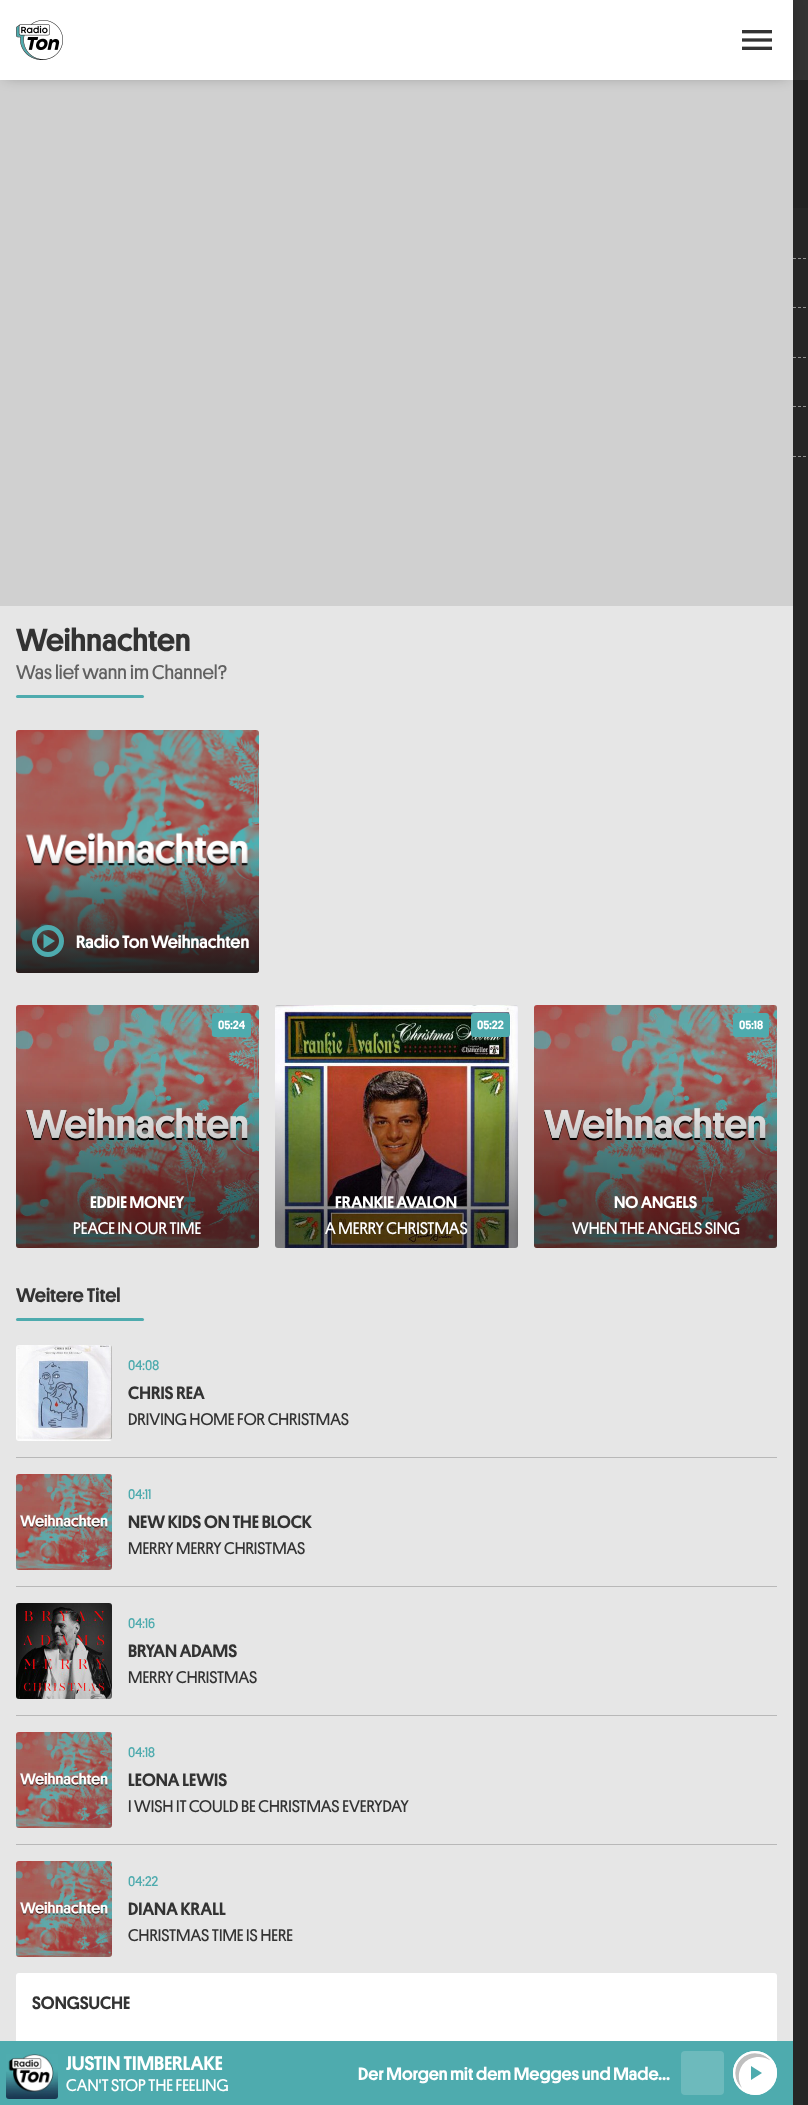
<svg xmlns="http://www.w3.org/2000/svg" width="808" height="2105">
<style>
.a{font:500 32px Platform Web;fill:#333}
.b{font:20px Platform Web;fill:#606060}
.c{font:500 18px Platform Web;fill:#fff}
.d{font:500 12px Platform Web;fill:#fff}
.e{font:500 17px Platform Web;fill:#fff}
.f{font:17px Platform Web;fill:#fff}
.g{font:500 20px Platform Web;fill:#333}
.h{font:14px Platform Web;fill:#4eabae}
.i{font:500 18px Platform Web;fill:#333}
.j{font:17px Platform Web;fill:#333}
.k{font:500 20px Platform Web;fill:#fff}
</style>
<defs>
<clipPath id="clip1"><path d="M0 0h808v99h-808zm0 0h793v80h-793z" clip-rule="evenodd"/></clipPath>
<linearGradient id="g1" gradientUnits="userSpaceOnUse" x1="137" y1="730" x2="138" y2="973"><stop offset="0.5" stop-color="#171717" stop-opacity="0"/><stop offset="1" stop-color="#171717" stop-opacity="0.9"/></linearGradient>
<linearGradient id="g2" gradientUnits="userSpaceOnUse" x1="137" y1="1005" x2="138" y2="1248"><stop offset="0.3" stop-color="#000" stop-opacity="0"/><stop offset="0.9" stop-color="#000" stop-opacity="0.5"/></linearGradient>
<linearGradient id="g3" gradientUnits="userSpaceOnUse" x1="397" y1="1005" x2="397" y2="1248"><stop offset="0.3" stop-color="#000" stop-opacity="0"/><stop offset="0.9" stop-color="#000" stop-opacity="0.5"/></linearGradient>
<linearGradient id="g4" gradientUnits="userSpaceOnUse" x1="656" y1="1005" x2="656" y2="1248"><stop offset="0.3" stop-color="#000" stop-opacity="0"/><stop offset="0.9" stop-color="#000" stop-opacity="0.5"/></linearGradient>
</defs>
<rect width="100%" height="100%" fill="#333"/>
<path fill="#fff" d="M0 0h793v80H0z"/>
<path fill="#d0d0d0" d="M0 80h793v526H0z"/>
<g clip-path="url(#clip1)">
<path fill="#00000066" filter="blur(7.5px)" d="M5 5h783v70H5z"/>
</g>
<image href="1.png" x="16" y="20" width="47" height="40"/>
<image href="2.png" x="742" y="30" width="30" height="20"/>
<path fill="#e6e6e6" d="M0 606h793v1435H0z"/>
<rect fill="#4eabae" x="16" y="695" width="128" height="3" rx="1.5"/>
<image href="3.png" x="16" y="730" width="243" height="243"/>
<rect fill="url(#g1)" x="16" y="730" width="243" height="243" rx="3"/>
<circle fill="none" stroke="#4eabae" stroke-width="5" cx="48" cy="941" r="13.5"/>
<path fill="#4eabae" d="M43.5 934l11.5 7l-11.5 7.5z"/>
<image href="4.png" x="16" y="1005" width="243" height="243"/>
<rect fill="url(#g2)" x="16" y="1005" width="243" height="243" rx="3"/>
<rect fill="#4eabae" x="212" y="1013" width="39" height="24" rx="3"/>
<image href="5.png" x="275" y="1005" width="243" height="243"/>
<rect fill="url(#g3)" x="275" y="1005" width="243" height="243" rx="3"/>
<rect fill="#4eabae" x="471" y="1013" width="39" height="24" rx="3"/>
<image href="4.png" x="534" y="1005" width="243" height="243"/>
<rect fill="url(#g4)" x="534" y="1005" width="243" height="243" rx="3"/>
<rect fill="#4eabae" x="733" y="1013" width="36" height="24" rx="3"/>
<rect fill="#4eabae" x="16" y="1318" width="128" height="3" rx="1.5"/>
<path fill="#b8b8b8" d="M16 1457h761v1H16z"/>
<image href="6.png" x="16" y="1345" width="96" height="96"/>
<path fill="#b8b8b8" d="M16 1586h761v1H16z"/>
<image href="7.png" x="16" y="1474" width="96" height="96"/>
<path fill="#b8b8b8" d="M16 1715h761v1H16z"/>
<image href="8.png" x="16" y="1603" width="96" height="96"/>
<path fill="#b8b8b8" d="M16 1844h761v1H16z"/>
<image href="7.png" x="16" y="1732" width="96" height="96"/>
<image href="7.png" x="16" y="1861" width="96" height="96"/>
<rect fill="#fff" x="16" y="1973" width="761" height="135" rx="3"/>
<path fill="#262626" d="M793 208h15v1897H793z"/>
<path fill="#222" d="M793 80h15v128H793z"/>
<path fill="none" stroke="#939393" stroke-dasharray="3 2" d="M793 258.5h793m-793 49h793"/>
<path fill="none" stroke="#939393" stroke-dasharray="3 2" d="M793 357.5h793m-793 49h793"/>
<path fill="none" stroke="#939393" stroke-dasharray="3 2" d="M793 456.5h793"/>
<path fill="#4eabae" d="M0 2041h793v64H0z"/>
<image href="9.png" x="6" y="2054" width="52" height="45"/>
<rect fill="#6dbabc" x="681" y="2051" width="43" height="44" rx="4"/>
<circle fill="#fff" cx="755" cy="2073" r="22"/>
<path fill="#bfbfbf" d="M759 2057c4.5 0 8.5 1.5 11.5 3.5c-7-9-21.5-10-29.5-1.5c-8 8-7.5 21.5 1 29c-7.5-12-1.5-31 17-31z"/>
<circle fill="none" stroke="#fff" stroke-width="2" cx="755" cy="2073" r="21"/>
<path fill="#4eabae" d="M751 2066l11 7l-11 7z"/>
<text class="a" x="16" y="651">Weihnachten</text>
<text class="b" x="16" y="679">Was lief wann im Channel?</text>
<text class="c" x="76" y="948">Radio Ton Weihnachten</text>
<text class="d" x="218" y="1029">05:24</text>
<text class="e" x="90" y="1208">EDDIE MONEY</text>
<text class="f" x="73" y="1234">PEACE IN OUR TIME</text>
<text class="d" x="477" y="1029">05:22</text>
<text class="e" x="335" y="1208">FRANKIE AVALON</text>
<text class="f" x="325" y="1234">A MERRY CHRISTMAS</text>
<text class="d" x="739" y="1029">05:18</text>
<text class="e" x="614" y="1208">NO ANGELS</text>
<text class="f" x="572" y="1234">WHEN THE ANGELS SING</text>
<text class="g" x="16" y="1302">Weitere Titel</text>
<text class="h" x="128" y="1370">04:08</text>
<text class="i" x="128" y="1399">CHRIS REA</text>
<text class="j" x="128" y="1425">DRIVING HOME FOR CHRISTMAS</text>
<text class="h" x="128" y="1499">04:11</text>
<text class="i" x="128" y="1528">NEW KIDS ON THE BLOCK</text>
<text class="j" x="128" y="1554">MERRY MERRY CHRISTMAS</text>
<text class="h" x="128" y="1628">04:16</text>
<text class="i" x="128" y="1657">BRYAN ADAMS</text>
<text class="j" x="128" y="1683">MERRY CHRISTMAS</text>
<text class="h" x="128" y="1757">04:18</text>
<text class="i" x="128" y="1786">LEONA LEWIS</text>
<text class="j" x="128" y="1812">I WISH IT COULD BE CHRISTMAS EVERYDAY</text>
<text class="h" x="128" y="1886">04:22</text>
<text class="i" x="128" y="1915">DIANA KRALL</text>
<text class="j" x="128" y="1941">CHRISTMAS TIME IS HERE</text>
<text class="i" x="32" y="2009">SONGSUCHE</text>
<text class="k" x="66" y="2070">JUSTIN TIMBERLAKE</text>
<text class="f" x="66" y="2091">CAN'T STOP THE FEELING</text>
<text class="c" x="358" y="2080">Der Morgen mit dem Megges und Made…</text>
</svg>
